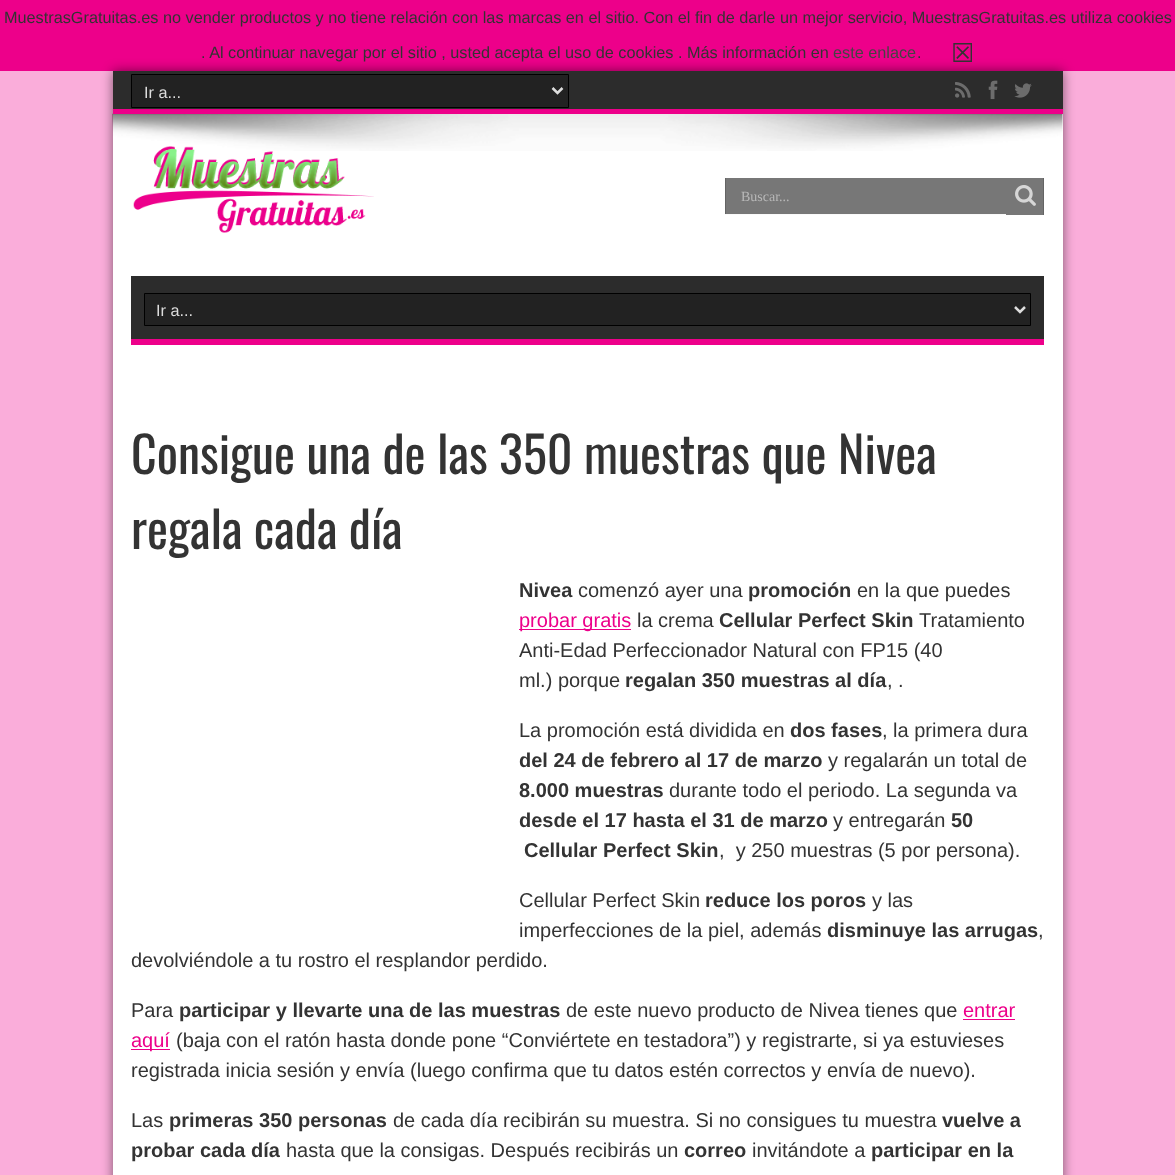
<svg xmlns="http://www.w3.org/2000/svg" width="1175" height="1175">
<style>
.a{font:16.25px Liberation Sans;fill:#333}
.b{font:16.25px Liberation Sans;fill:#444}
.c{font:26px DejaVu Sans;fill:#333}
.d{font:16.25px Liberation Sans;fill:#ddd}
.e{font:14px Liberation Serif;fill:#b8b8b8}
.f{font:50px Oswald;fill:#333}
.g{font:bold 20px Liberation Sans;fill:#333}
.h{font:20px Liberation Sans;fill:#333}
.i{font:20px Liberation Sans;fill:#ed008a}
</style>
<rect width="100%" height="100%" fill="#faadda"/>
<path fill="#ed008a" d="M0 0h1175v71H0z"/>
<path fill="#00000080" filter="blur(6px)" d="M113 71h950v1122H113z"/>
<path fill="#fff" d="M113 114h950v1061H113z"/>
<path fill="#2c2c2c" d="M113 71h950v38H113z"/>
<image href="5.png" x="112" y="113" width="951" height="38"/>
<path fill="#ed008a" d="M113 109h950v5H113z"/>
<path fill="#00000008" d="M131 76v34h438v-34v32h-438z"/>
<path fill="#222" stroke="#000" d="M131.5 74.5h437v33H131.5z"/>
<path fill="none" stroke="#ddd" stroke-width="2.5" d="M552.5 88l5 5l5-5"/>
<image href="1.png" x="955" y="82" width="16" height="16"/>
<image href="2.png" x="988" y="80" width="10" height="20"/>
<image href="3.png" x="1014" y="83" width="18" height="15"/>
<path fill="#fafafa" d="M725 214h281v1H725z"/>
<path fill="#777" d="M726 178h280v36H726z"/>
<path fill="#646464" d="M725 178h1v36H725z"/>
<path fill="#777" d="M1006 178h37v37H1006z"/>
<path fill="#646464" d="M1043 178h1v37H1043z"/>
<image href="4.png" x="1015" y="185" width="21" height="21"/>
<image href="6.png" x="133" y="146" width="241" height="87"/>
<path fill="#2c2c2c" d="M131 276h913v63H131z"/>
<path fill="#ed008a" d="M131 339h913v6H131z"/>
<path fill="#222" stroke="#000" d="M144.5 293.5h886v32H144.5z"/>
<path fill="none" stroke="#ddd" stroke-width="2.5" d="M1015 307l5 5l5-5"/>
<path fill="#ed008a" d="M519 629h112v1H519z"/>
<path fill="#ed008a" d="M963 1019h52v1H963z"/>
<path fill="#ed008a" d="M131 1049h39v1H131z"/>
<text class="a" x="4" y="23">MuestrasGratuitas.es no vender productos y no tiene relación con las marcas en el sitio. Con el fin de darle un mejor servicio, MuestrasGratuitas.es utiliza cookies</text>
<text class="a" x="201" y="58">. Al continuar navegar por el sitio , usted acepta el uso de cookies . Más información en</text>
<text class="b" x="833" y="58">este enlace</text>
<text class="a" x="917" y="58">.</text>
<text class="c" x="951" y="62">☒</text>
<text class="d" x="144" y="98">Ir a...</text>
<text class="e" x="741" y="201">Buscar...</text>
<text class="d" x="156" y="316">Ir a...</text>
<text class="f" x="131" y="474">Consigue una de las 350 muestras que Nivea</text>
<text class="f" x="131" y="549">regala cada día</text>
<text class="g" x="519" y="597">Nivea</text>
<text class="h" x="578" y="597">comenzó ayer una</text>
<text class="g" x="748" y="597">promoción</text>
<text class="h" x="857" y="597">en la que puedes</text>
<text class="i" x="519" y="627">probar gratis</text>
<text class="h" x="637" y="627">la crema</text>
<text class="g" x="719" y="627">Cellular Perfect Skin</text>
<text class="h" x="919" y="627">Tratamiento</text>
<text class="h" x="519" y="657">Anti-Edad Perfeccionador Natural con FP15 (40</text>
<text class="h" x="519" y="687">ml.) porque</text>
<text class="g" x="625" y="687">regalan 350 muestras al día</text>
<text class="h" x="887" y="687">, .</text>
<text class="h" x="519" y="737">La promoción está dividida en</text>
<text class="g" x="790" y="737">dos fases</text>
<text class="h" x="882" y="737">, la primera dura</text>
<text class="g" x="519" y="767">del 24 de febrero al 17 de marzo</text>
<text class="h" x="828" y="767">y regalarán un total de</text>
<text class="g" x="519" y="797">8.000 muestras</text>
<text class="h" x="669" y="797">durante todo el periodo. La segunda va</text>
<text class="g" x="519" y="827">desde el 17 hasta el 31 de marzo</text>
<text class="h" x="833" y="827">y entregarán</text>
<text class="g" x="951" y="827">50</text>
<text class="g" x="524" y="857">Cellular Perfect Skin</text>
<text class="h" xml:space="preserve" x="719" y="857">,  y 250 muestras (5 por persona).</text>
<text class="h" x="519" y="907">Cellular Perfect Skin</text>
<text class="g" x="705" y="907">reduce los poros</text>
<text class="h" x="872" y="907">y las</text>
<text class="h" x="519" y="937">imperfecciones de la piel, además</text>
<text class="g" x="827" y="937">disminuye las arrugas</text>
<text class="h" x="1038" y="937">,</text>
<text class="h" x="131" y="967">devolviéndole a tu rostro el resplandor perdido.</text>
<text class="h" x="131" y="1017">Para</text>
<text class="g" x="179" y="1017">participar y llevarte una de las muestras</text>
<text class="h" x="566" y="1017">de este nuevo producto de Nivea tienes que</text>
<text class="i" x="963" y="1017">entrar</text>
<text class="i" x="131" y="1047">aquí</text>
<text class="h" x="176" y="1047">(baja con el ratón hasta donde pone “Conviértete en testadora”) y registrarte, si ya estuvieses</text>
<text class="h" x="131" y="1077">registrada inicia sesión y envía (luego confirma que tu datos estén correctos y envía de nuevo).</text>
<text class="h" x="131" y="1127">Las</text>
<text class="g" x="169" y="1127">primeras 350 personas</text>
<text class="h" x="393" y="1127">de cada día recibirán su muestra. Si no consigues tu muestra</text>
<text class="g" x="942" y="1127">vuelve a</text>
<text class="g" x="131" y="1157">probar cada día</text>
<text class="h" x="286" y="1157">hasta que la consigas. Después recibirás un</text>
<text class="g" x="684" y="1157">correo</text>
<text class="h" x="752" y="1157">invitándote a</text>
<text class="g" x="871" y="1157">participar en la</text>
</svg>
